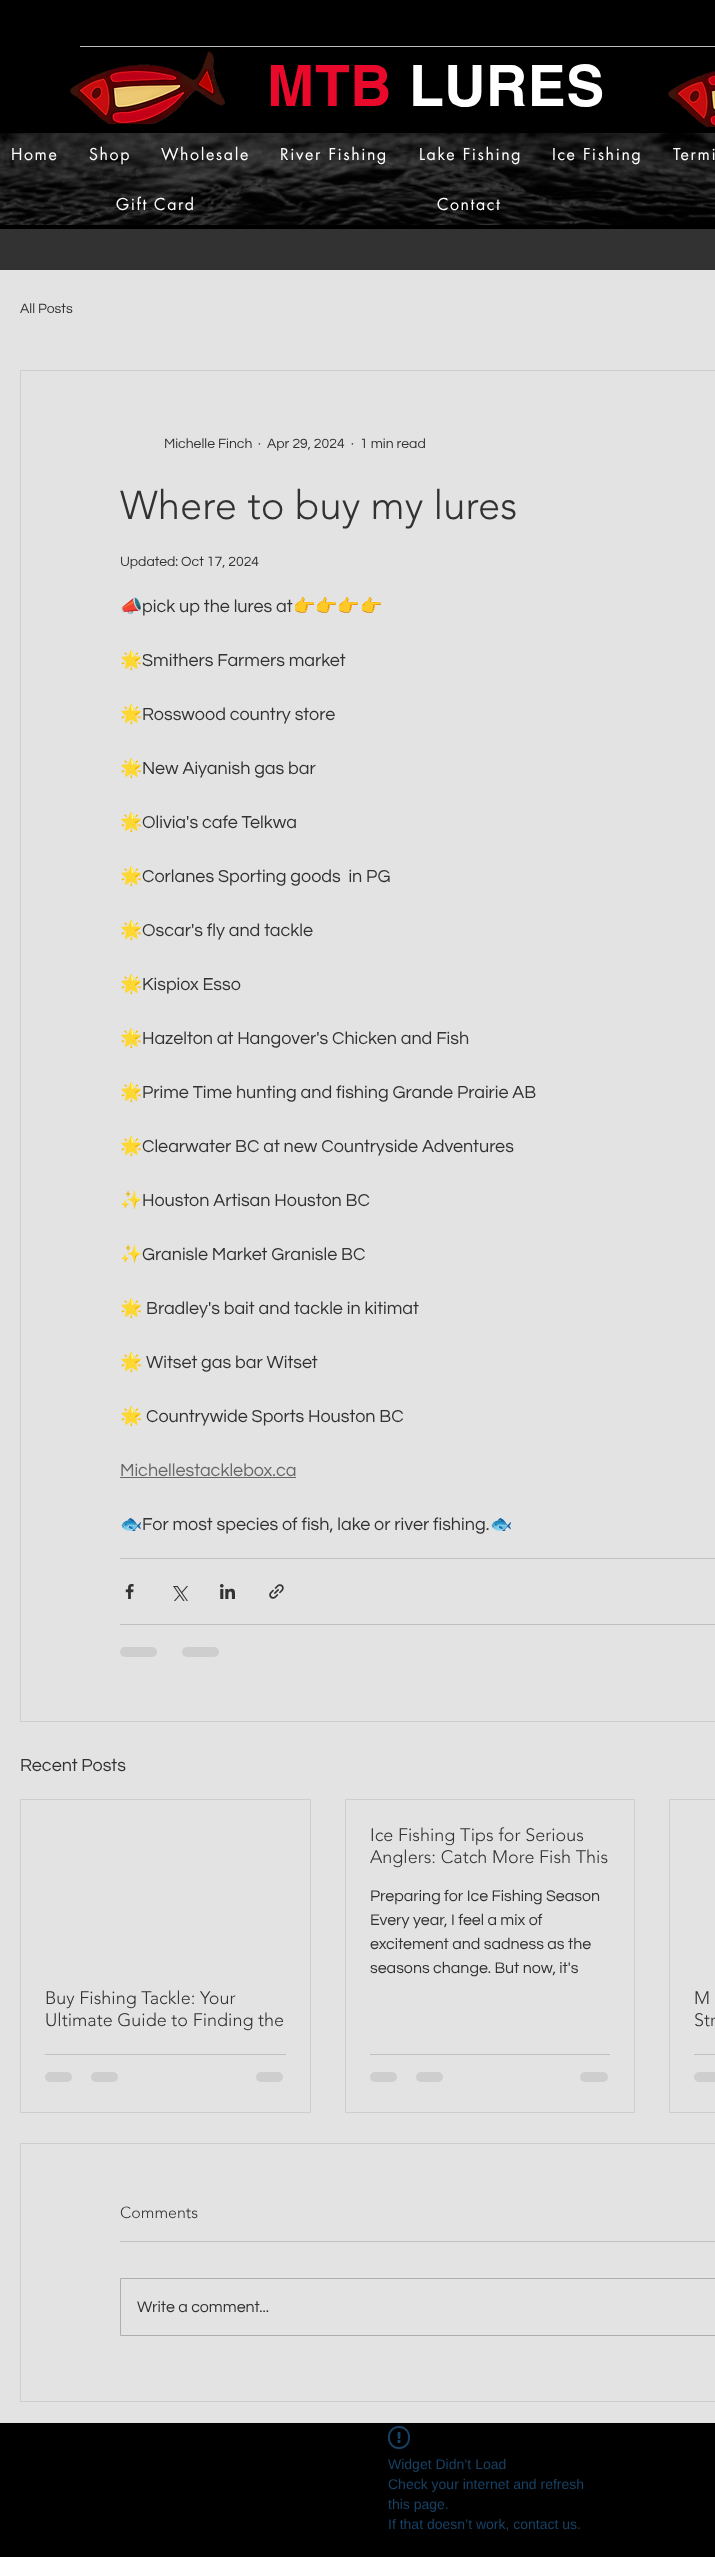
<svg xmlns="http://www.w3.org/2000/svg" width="715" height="2557">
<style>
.a{font:bold 57px helvetica;letter-spacing:0.5px;fill:#e90a2b}
.b{font:bold 57px helvetica;letter-spacing:0.5px;fill:#fff}
.c{font:16px futura;letter-spacing:1.6px;fill:#fff}
.d{font:14px Questrial;fill:#323232}
.e{font:300 40px 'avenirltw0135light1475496';fill:#323232}
.f{font:18px Noto Color Emoji;fill:#323232}
.g{font:18px Questrial;fill:#323232}
.h{font:18px Questrial;fill:#676767}
.i{font:300 18px 'avenirltw0135light1475496';fill:#323232}
.j{font:16px Questrial;fill:#323232}
.k{font:300 16px 'avenirltw0135light1475496';fill:#323232}
.l{font:14px Liberation Sans;fill:#174165}
</style>
<rect width="100%" height="100%" fill="#323232"/>
<path fill="#000" d="M0 0h715v229H0z"/>
<path fill="#c1c1c1" d="M80 46h635v1H80z"/>
<image href="1.png" x="70" y="51" width="155" height="73"/>
<image href="2.png" x="668" y="71" width="47" height="56"/>
<image href="3.png" x="0" y="133" width="715" height="92"/>
<path fill="#e3e3e3" d="M0 270h715v2152H0z"/>
<path fill="none" stroke="#cecece" d="M20.5 370.5h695v1351H20.5z"/>
<path fill="#676767" d="M120 1477h176v1H120z"/>
<path fill="#c0c0c0" d="M120 1558h595v1H120z"/>
<image href="4.png" x="125" y="1584" width="9" height="15"/>
<image href="5.png" x="173" y="1586" width="15" height="15"/>
<image href="6.png" x="220" y="1584" width="15" height="15"/>
<image href="7.png" x="269" y="1584" width="15" height="15"/>
<path fill="#c0c0c0" d="M120 1624h595v1H120z"/>
<rect fill="#cecece" x="120" y="1647" width="37" height="10" rx="5"/>
<rect fill="#cecece" x="182" y="1647" width="37" height="10" rx="5"/>
<path fill="none" stroke="#cecece" d="M345.5 1799.5h289v313H345.5z"/>
<path fill="#c0c0c0" d="M370 2054h240v1H370z"/>
<rect fill="#cecece" x="370" y="2072" width="27" height="10" rx="5"/>
<rect fill="#cecece" x="416" y="2072" width="27" height="10" rx="5"/>
<rect fill="#cecece" x="580" y="2072" width="28" height="10" rx="5"/>
<path fill="none" stroke="#cecece" d="M20.5 1799.5h290v313H20.5z"/>
<path fill="#c0c0c0" d="M45 2054h241v1H45z"/>
<rect fill="#cecece" x="45" y="2072" width="27" height="10" rx="5"/>
<rect fill="#cecece" x="91" y="2072" width="27" height="10" rx="5"/>
<rect fill="#cecece" x="256" y="2072" width="27" height="10" rx="5"/>
<path fill="none" stroke="#cecece" d="M669.5 1799.5h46v313H669.5z"/>
<path fill="#c0c0c0" d="M694 2054h21v1H694z"/>
<rect fill="#cecece" x="694" y="2072" width="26" height="10" rx="5"/>
<path fill="none" stroke="#cecece" d="M20.5 2143.5h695v258H20.5z"/>
<path fill="#c0c0c0" d="M120 2241h595v1H120z"/>
<path fill="none" stroke="#aeaeae" d="M120.5 2278.5h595v57H120.5z"/>
<path fill="#e0e0e0" d="M0 2422h715v1H0z"/>
<path fill="#000" d="M0 2423h715v134H0z"/>
<image href="8.png" x="388" y="2426" width="22" height="23"/>
<text class="a" x="267" y="106">MTB</text>
<text class="b" x="409" y="106">LURES</text>
<text class="c" x="11" y="160">Home</text>
<text class="c" x="89" y="160">Shop</text>
<text class="c" x="161" y="160">Wholesale</text>
<text class="c" x="280" y="160">River Fishing</text>
<text class="c" x="419" y="160">Lake Fishing</text>
<text class="c" x="552" y="160">Ice Fishing</text>
<text class="c" x="673" y="160">Termi</text>
<text class="c" x="116" y="210">Gift Card</text>
<text class="c" x="437" y="210">Contact</text>
<text class="d" x="20" y="313">All Posts</text>
<text class="d" x="164" y="448">Michelle Finch</text>
<text class="d" x="258" y="448">·</text>
<text class="d" x="267" y="448">Apr 29, 2024</text>
<text class="d" x="351" y="448">·</text>
<text class="d" x="360" y="448">1 min read</text>
<text class="e" x="120" y="519">Where to buy my lures</text>
<text class="d" x="120" y="566">Updated: Oct 17, 2024</text>
<text class="f" x="120" y="612">📣</text>
<text class="g" x="142" y="612">pick up the lures at</text>
<text class="f" x="293" y="612">👉👉👉👉</text>
<text class="f" x="120" y="666">🌟</text>
<text class="g" x="142" y="666">Smithers Farmers market</text>
<text class="f" x="120" y="720">🌟</text>
<text class="g" x="142" y="720">Rosswood country store</text>
<text class="f" x="120" y="774">🌟</text>
<text class="g" x="142" y="774">New Aiyanish gas bar</text>
<text class="f" x="120" y="828">🌟</text>
<text class="g" x="142" y="828">Olivia's cafe Telkwa</text>
<text class="f" x="120" y="882">🌟</text>
<text class="g" xml:space="preserve" x="142" y="882">Corlanes Sporting goods  in PG</text>
<text class="f" x="120" y="936">🌟</text>
<text class="g" x="142" y="936">Oscar's fly and tackle</text>
<text class="f" x="120" y="990">🌟</text>
<text class="g" x="142" y="990">Kispiox Esso</text>
<text class="f" x="120" y="1044">🌟</text>
<text class="g" x="142" y="1044">Hazelton at Hangover's Chicken and Fish</text>
<text class="f" x="120" y="1098">🌟</text>
<text class="g" x="142" y="1098">Prime Time hunting and fishing Grande Prairie AB</text>
<text class="f" x="120" y="1152">🌟</text>
<text class="g" x="142" y="1152">Clearwater BC at new Countryside Adventures</text>
<text class="f" x="120" y="1206">✨️</text>
<text class="g" x="142" y="1206">Houston Artisan Houston BC</text>
<text class="f" x="120" y="1260">✨️</text>
<text class="g" x="142" y="1260">Granisle Market Granisle BC</text>
<text class="f" x="120" y="1314">🌟</text>
<text class="g" x="146" y="1314">Bradley's bait and tackle in kitimat</text>
<text class="f" x="120" y="1368">🌟</text>
<text class="g" x="146" y="1368">Witset gas bar Witset</text>
<text class="f" x="120" y="1422">🌟</text>
<text class="g" x="146" y="1422">Countrywide Sports Houston BC</text>
<text class="h" x="120" y="1476">Michellestacklebox.ca</text>
<text class="f" x="120" y="1530">🐟</text>
<text class="g" x="142" y="1530">For most species of fish, lake or river fishing.</text>
<text class="f" x="490" y="1530">🐟</text>
<text class="g" x="20" y="1771">Recent Posts</text>
<text class="i" x="370" y="1841">Ice Fishing Tips for Serious</text>
<text class="i" x="370" y="1863">Anglers: Catch More Fish This</text>
<text class="j" x="370" y="1901">Preparing for Ice Fishing Season</text>
<text class="j" x="370" y="1925">Every year, I feel a mix of</text>
<text class="j" x="370" y="1949">excitement and sadness as the</text>
<text class="j" x="370" y="1973">seasons change. But now, it's</text>
<text class="i" x="45" y="2004">Buy Fishing Tackle: Your</text>
<text class="i" x="45" y="2026">Ultimate Guide to Finding the</text>
<text class="i" x="694" y="2004">M</text>
<text class="i" x="694" y="2026">Str</text>
<text class="k" x="120" y="2218">Comments</text>
<text class="j" x="137" y="2312">Write a comment...</text>
<text class="l" x="388" y="2469">Widget Didn’t Load</text>
<text class="l" x="388" y="2489">Check your internet and refresh</text>
<text class="l" x="388" y="2509">this page.</text>
<text class="l" x="388" y="2529">If that doesn’t work, contact us.</text>
</svg>
